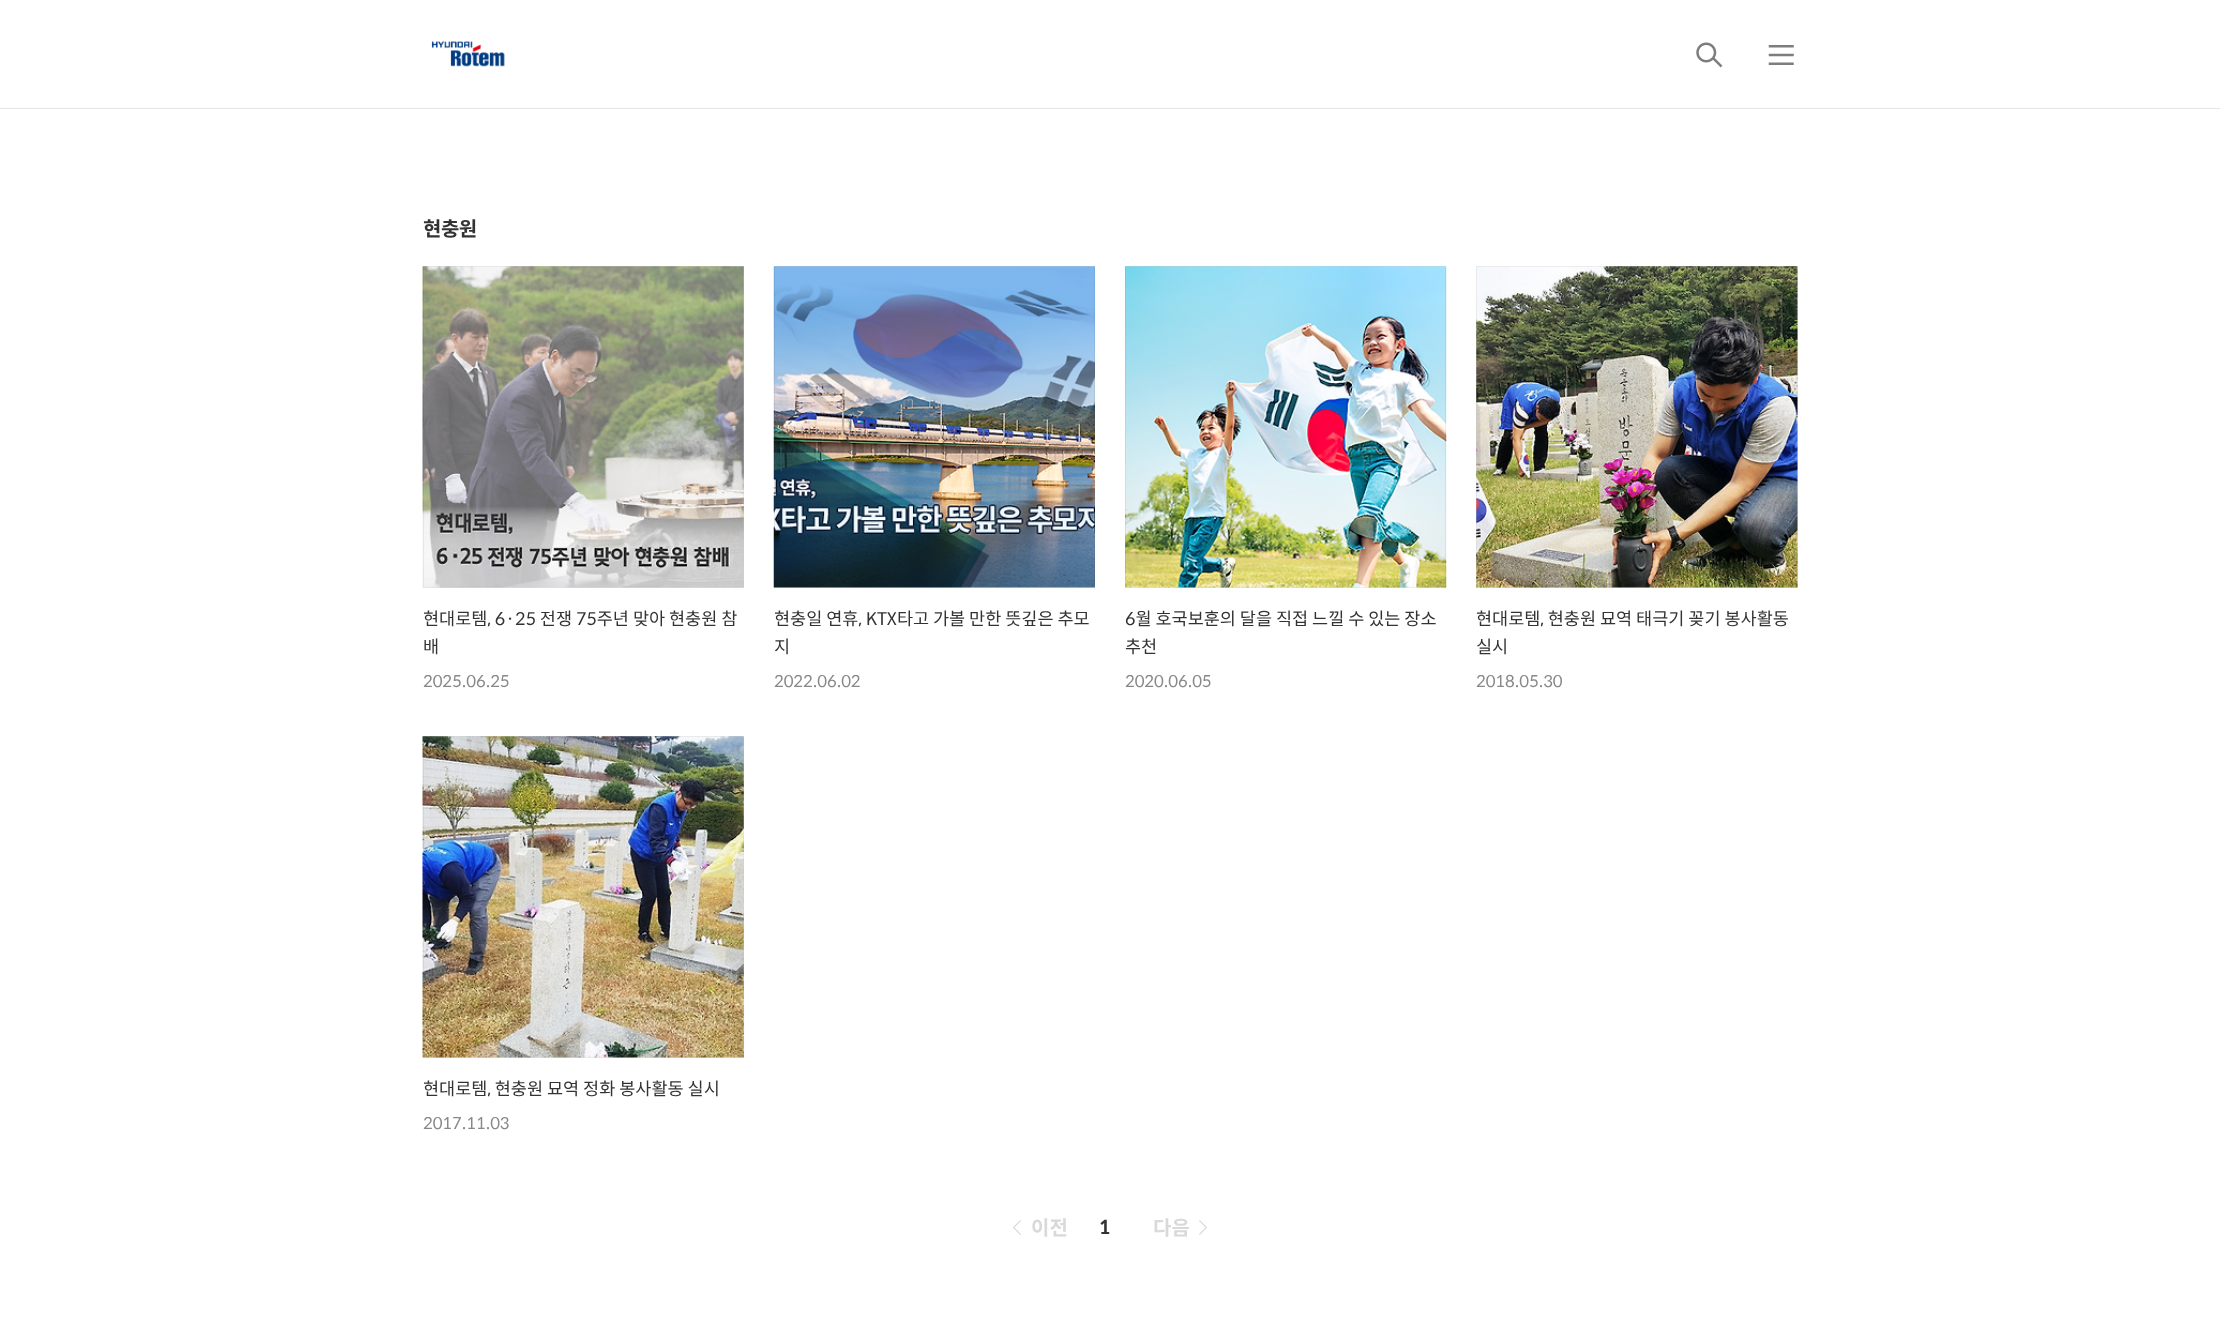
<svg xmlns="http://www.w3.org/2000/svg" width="2220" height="1334">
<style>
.a{font:bold 20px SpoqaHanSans;letter-spacing:-0.5px;fill:#333}
.b{font:17.5px SpoqaHanSans;fill:#333}
.c{font:16.25px SpoqaHanSans;fill:#888}
.d{font:bold 20px SpoqaHanSans;fill:#d9d9d9}
.e{font:bold 19px SpoqaHanSans;fill:#333}
</style>
<rect width="100%" height="100%" fill="#fff"/>
<path fill="#e6e6e6" d="M0 108h2220v1H0z"/>
<image href="1.png" x="431" y="41" width="74" height="26"/>
<image href="2.png" x="1696" y="42" width="27" height="26"/>
<image href="3.png" x="1768" y="45" width="26" height="20"/>
<image href="4.png" x="422" y="266" width="322" height="322"/>
<path fill="none" stroke="#0000000f" d="M423.5 266.5h320v321H423.5z"/>
<image href="5.png" x="773" y="266" width="322" height="322"/>
<path fill="none" stroke="#0000000f" d="M774.5 266.5h320v321H774.5z"/>
<image href="6.png" x="1125" y="266" width="322" height="322"/>
<path fill="none" stroke="#0000000f" d="M1125.5 266.5h320v321H1125.5z"/>
<image href="7.png" x="1476" y="266" width="322" height="322"/>
<path fill="none" stroke="#0000000f" d="M1476.5 266.5h321v321H1476.5z"/>
<image href="8.png" x="422" y="736" width="322" height="322"/>
<path fill="none" stroke="#0000000f" d="M423.5 736.5h320v321H423.5z"/>
<image href="9.png" x="1013" y="1220" width="8" height="15"/>
<image href="10.png" x="1199" y="1220" width="8" height="15"/>
<text class="a" x="423" y="236">현충원</text>
<text class="b" x="423" y="625">현대로템, 6·25 전쟁 75주년 맞아 현충원 참</text>
<text class="b" x="423" y="653">배</text>
<text class="c" x="423" y="687">2025.06.25</text>
<text class="b" x="774" y="625">현충일 연휴, KTX타고 가볼 만한 뜻깊은 추모</text>
<text class="b" x="774" y="653">지</text>
<text class="c" x="774" y="687">2022.06.02</text>
<text class="b" x="1125" y="625">6월 호국보훈의 달을 직접 느낄 수 있는 장소</text>
<text class="b" x="1125" y="653">추천</text>
<text class="c" x="1125" y="687">2020.06.05</text>
<text class="b" x="1476" y="625">현대로템, 현충원 묘역 태극기 꽂기 봉사활동</text>
<text class="b" x="1476" y="653">실시</text>
<text class="c" x="1476" y="687">2018.05.30</text>
<text class="b" x="423" y="1095">현대로템, 현충원 묘역 정화 봉사활동 실시</text>
<text class="c" x="423" y="1129">2017.11.03</text>
<text class="d" x="1031" y="1235">이전</text>
<text class="e" x="1099" y="1234">1</text>
<text class="d" x="1153" y="1235">다음</text>
</svg>
